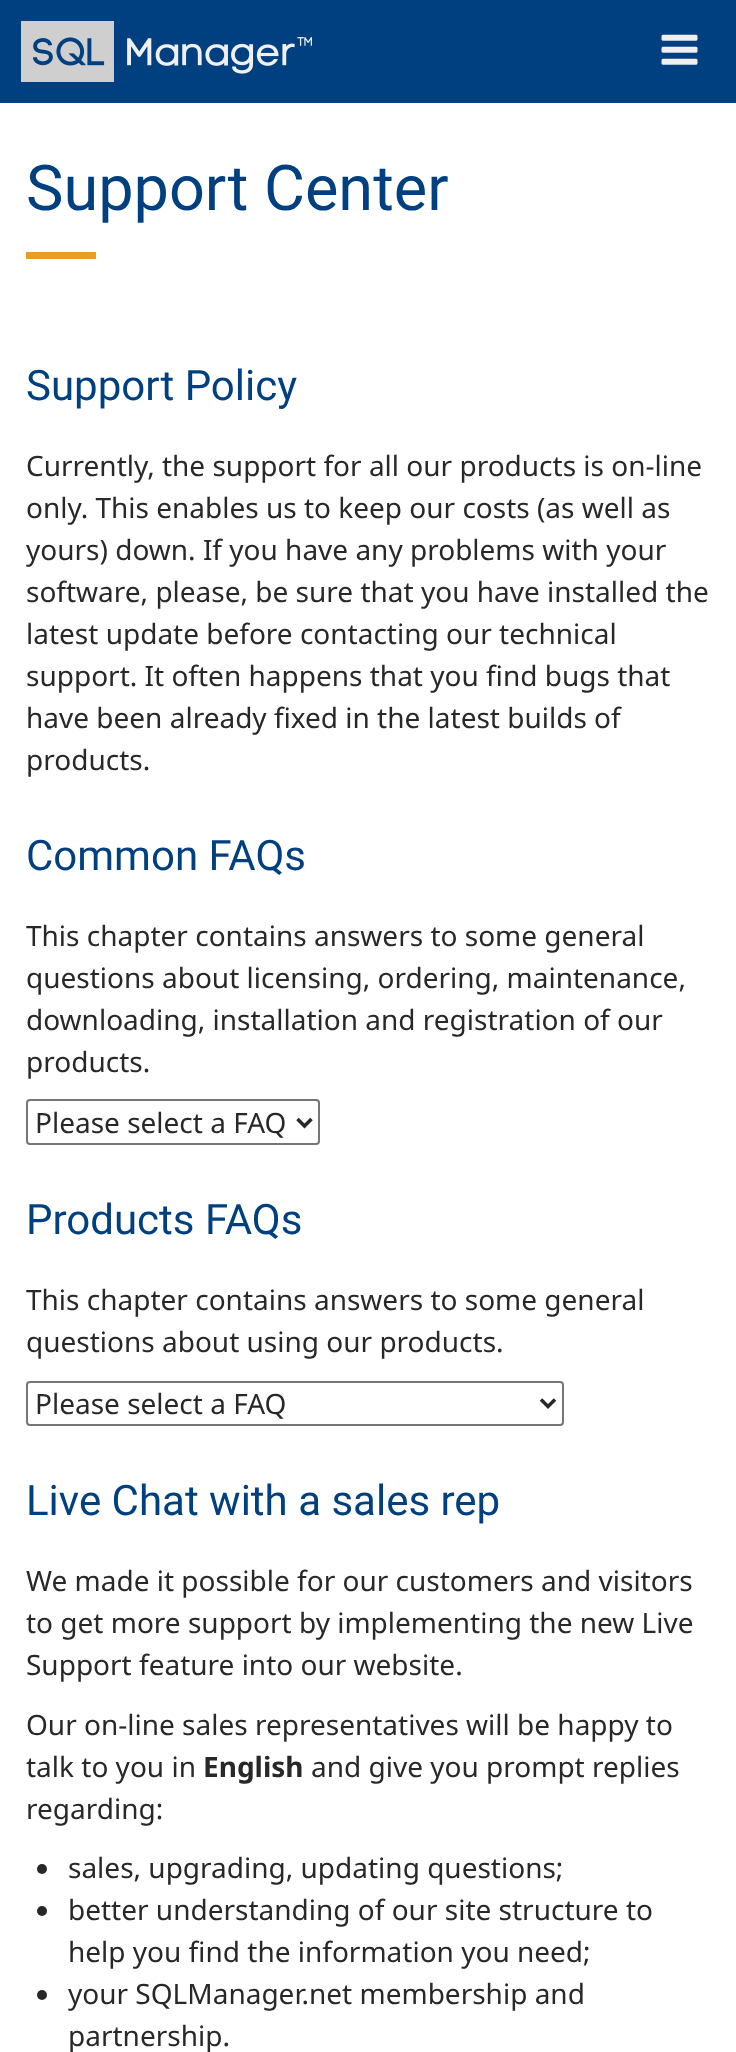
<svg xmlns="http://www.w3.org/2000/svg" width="736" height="2052">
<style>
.a{font:63px Roboto;fill:#004080}
.b{font:42px Roboto;fill:#004080}
.c{font:28px Noto Sans;fill:#282828}
.d{font:bold 28px Noto Sans;fill:#282828}
</style>
<rect width="100%" height="100%" fill="#fff"/>
<path fill="#004080" d="M0 0h736v103H0z"/>
<image href="1.png" x="21" y="21" width="291" height="61"/>
<image href="2.png" x="661" y="34" width="37" height="31"/>
<path fill="#e69e21" d="M26 252h70v7H26z"/>
<rect fill="none" stroke="#767676" stroke-width="2" x="27" y="1100" width="292" height="44" rx="3"/>
<path fill="none" stroke="#282828" stroke-width="3.5" d="M297.5 1119l7 7l7-7"/>
<rect fill="none" stroke="#767676" stroke-width="2" x="27" y="1382" width="536" height="43" rx="3"/>
<path fill="none" stroke="#282828" stroke-width="3.5" d="M541 1399.5l7 7l7-7"/>
<circle fill="#282828" cx="42" cy="1869" r="5"/>
<circle fill="#282828" cx="42" cy="1911" r="5"/>
<circle fill="#282828" cx="42" cy="1995" r="5"/>
<text class="a" x="26" y="210">Support Center</text>
<text class="b" x="26" y="400">Support Policy</text>
<text class="c" x="26" y="476">Currently, the support for all our products is on-line</text>
<text class="c" x="26" y="518">only. This enables us to keep our costs (as well as</text>
<text class="c" x="26" y="560">yours) down. If you have any problems with your</text>
<text class="c" x="26" y="602">software, please, be sure that you have installed the</text>
<text class="c" x="26" y="644">latest update before contacting our technical</text>
<text class="c" x="26" y="686">support. It often happens that you find bugs that</text>
<text class="c" x="26" y="728">have been already fixed in the latest builds of</text>
<text class="c" x="26" y="770">products.</text>
<text class="b" x="26" y="870">Common FAQs</text>
<text class="c" x="26" y="946">This chapter contains answers to some general</text>
<text class="c" x="26" y="988">questions about licensing, ordering, maintenance,</text>
<text class="c" x="26" y="1030">downloading, installation and registration of our</text>
<text class="c" x="26" y="1072">products.</text>
<text class="c" x="35" y="1133">Please select a FAQ</text>
<text class="b" x="26" y="1234">Products FAQs</text>
<text class="c" x="26" y="1310">This chapter contains answers to some general</text>
<text class="c" x="26" y="1352">questions about using our products.</text>
<text class="c" x="35" y="1414">Please select a FAQ</text>
<text class="b" x="26" y="1515">Live Chat with a sales rep</text>
<text class="c" x="26" y="1591">We made it possible for our customers and visitors</text>
<text class="c" x="26" y="1633">to get more support by implementing the new Live</text>
<text class="c" x="26" y="1675">Support feature into our website.</text>
<text class="c" x="26" y="1735">Our on-line sales representatives will be happy to</text>
<text class="c" x="26" y="1777">talk to you in</text>
<text class="d" x="203" y="1777">English</text>
<text class="c" x="311" y="1777">and give you prompt replies</text>
<text class="c" x="26" y="1819">regarding:</text>
<text class="c" x="68" y="1878">sales, upgrading, updating questions;</text>
<text class="c" x="68" y="1920">better understanding of our site structure to</text>
<text class="c" x="68" y="1962">help you find the information you need;</text>
<text class="c" x="68" y="2004">your SQLManager.net membership and</text>
<text class="c" x="68" y="2046">partnership.</text>
</svg>
